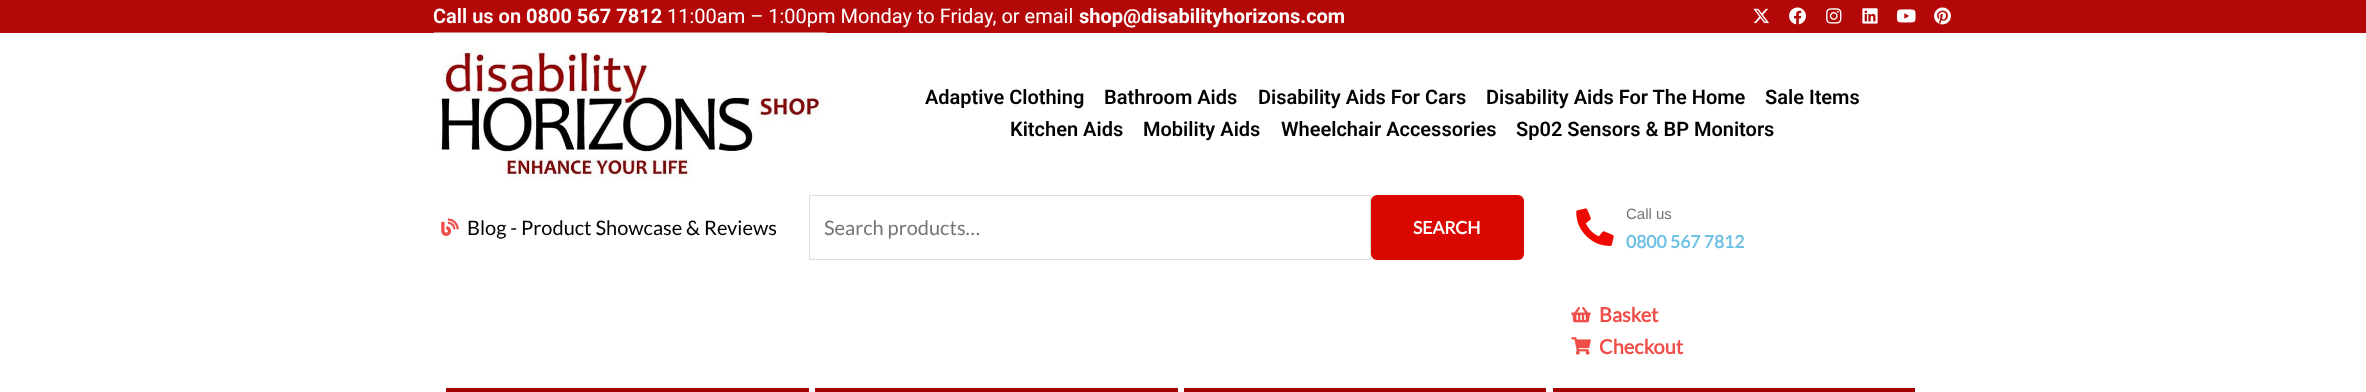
<svg xmlns="http://www.w3.org/2000/svg" width="2366" height="392">
<style>
.a{font:600 20px Roboto;fill:#fff}
.b{font:bold 20px Roboto;fill:#fff}
.c{font:20px Roboto;fill:#fff}
.d{font:600 20px Roboto;fill:#000}
.e{font:20px Lato;fill:#000}
.f{font:20px Lato;fill:#757575}
.g{font:bold 17.5px Lato;fill:#fff}
.h{font:15px Liberation Sans;fill:#757575}
.i{font:bold 17.5px Lato;fill:#6ec1e4}
.j{font:bold 20px Lato;fill:#ef4d48}
</style>
<rect width="100%" height="100%" fill="#fff"/>
<path fill="#b40808" d="M0 0h2366v33H0z"/>
<image href="1.png" x="1753" y="8" width="16" height="16"/>
<image href="2.png" x="1789" y="7" width="17" height="18"/>
<image href="3.png" x="1826" y="8" width="16" height="16"/>
<image href="4.png" x="1862" y="8" width="16" height="16"/>
<image href="5.png" x="1896" y="9" width="20" height="14"/>
<image href="6.png" x="1934" y="7" width="17" height="18"/>
<image href="7.png" x="433" y="32" width="394" height="147"/>
<image href="8.png" x="441" y="218" width="18" height="18"/>
<path fill="none" stroke="#ddd" d="M809.5 195.5h561v64H809.5z"/>
<rect fill="#d90700" x="1371" y="195" width="153" height="65" rx="6"/>
<image href="9.png" x="1576" y="208" width="38" height="38"/>
<image href="10.png" x="1571" y="307" width="20" height="16"/>
<image href="11.png" x="1571" y="337" width="20" height="18"/>
<path fill="#a40000" d="M446 388h363v4H446z"/>
<path fill="#a40000" d="M815 388h363v4H815z"/>
<path fill="#a40000" d="M1184 388h362v4H1184z"/>
<path fill="#a40000" d="M1553 388h362v4H1553z"/>
<text class="a" x="433" y="23">Call us on</text>
<text class="b" x="526" y="23">0800 567 7812</text>
<text class="c" x="667" y="23">11:00am – 1:00pm Monday to Friday, or email</text>
<text class="b" x="1079" y="23">shop@disabilityhorizons.com</text>
<text class="d" x="925" y="104">Adaptive Clothing</text>
<text class="d" x="1104" y="104">Bathroom Aids</text>
<text class="d" x="1258" y="104">Disability Aids For Cars</text>
<text class="d" x="1486" y="104">Disability Aids For The Home</text>
<text class="d" x="1765" y="104">Sale Items</text>
<text class="d" x="1010" y="136">Kitchen Aids</text>
<text class="d" x="1143" y="136">Mobility Aids</text>
<text class="d" x="1281" y="136">Wheelchair Accessories</text>
<text class="d" x="1516" y="136">Sp02 Sensors &amp; BP Monitors</text>
<text class="e" x="467" y="235">Blog - Product Showcase &amp; Reviews</text>
<text class="f" x="824" y="235">Search products…</text>
<text class="g" x="1413" y="234">SEARCH</text>
<text class="h" x="1626" y="219">Call us</text>
<text class="i" x="1626" y="248">0800 567 7812</text>
<text class="j" x="1599" y="322">Basket</text>
<text class="j" x="1599" y="354">Checkout</text>
</svg>
